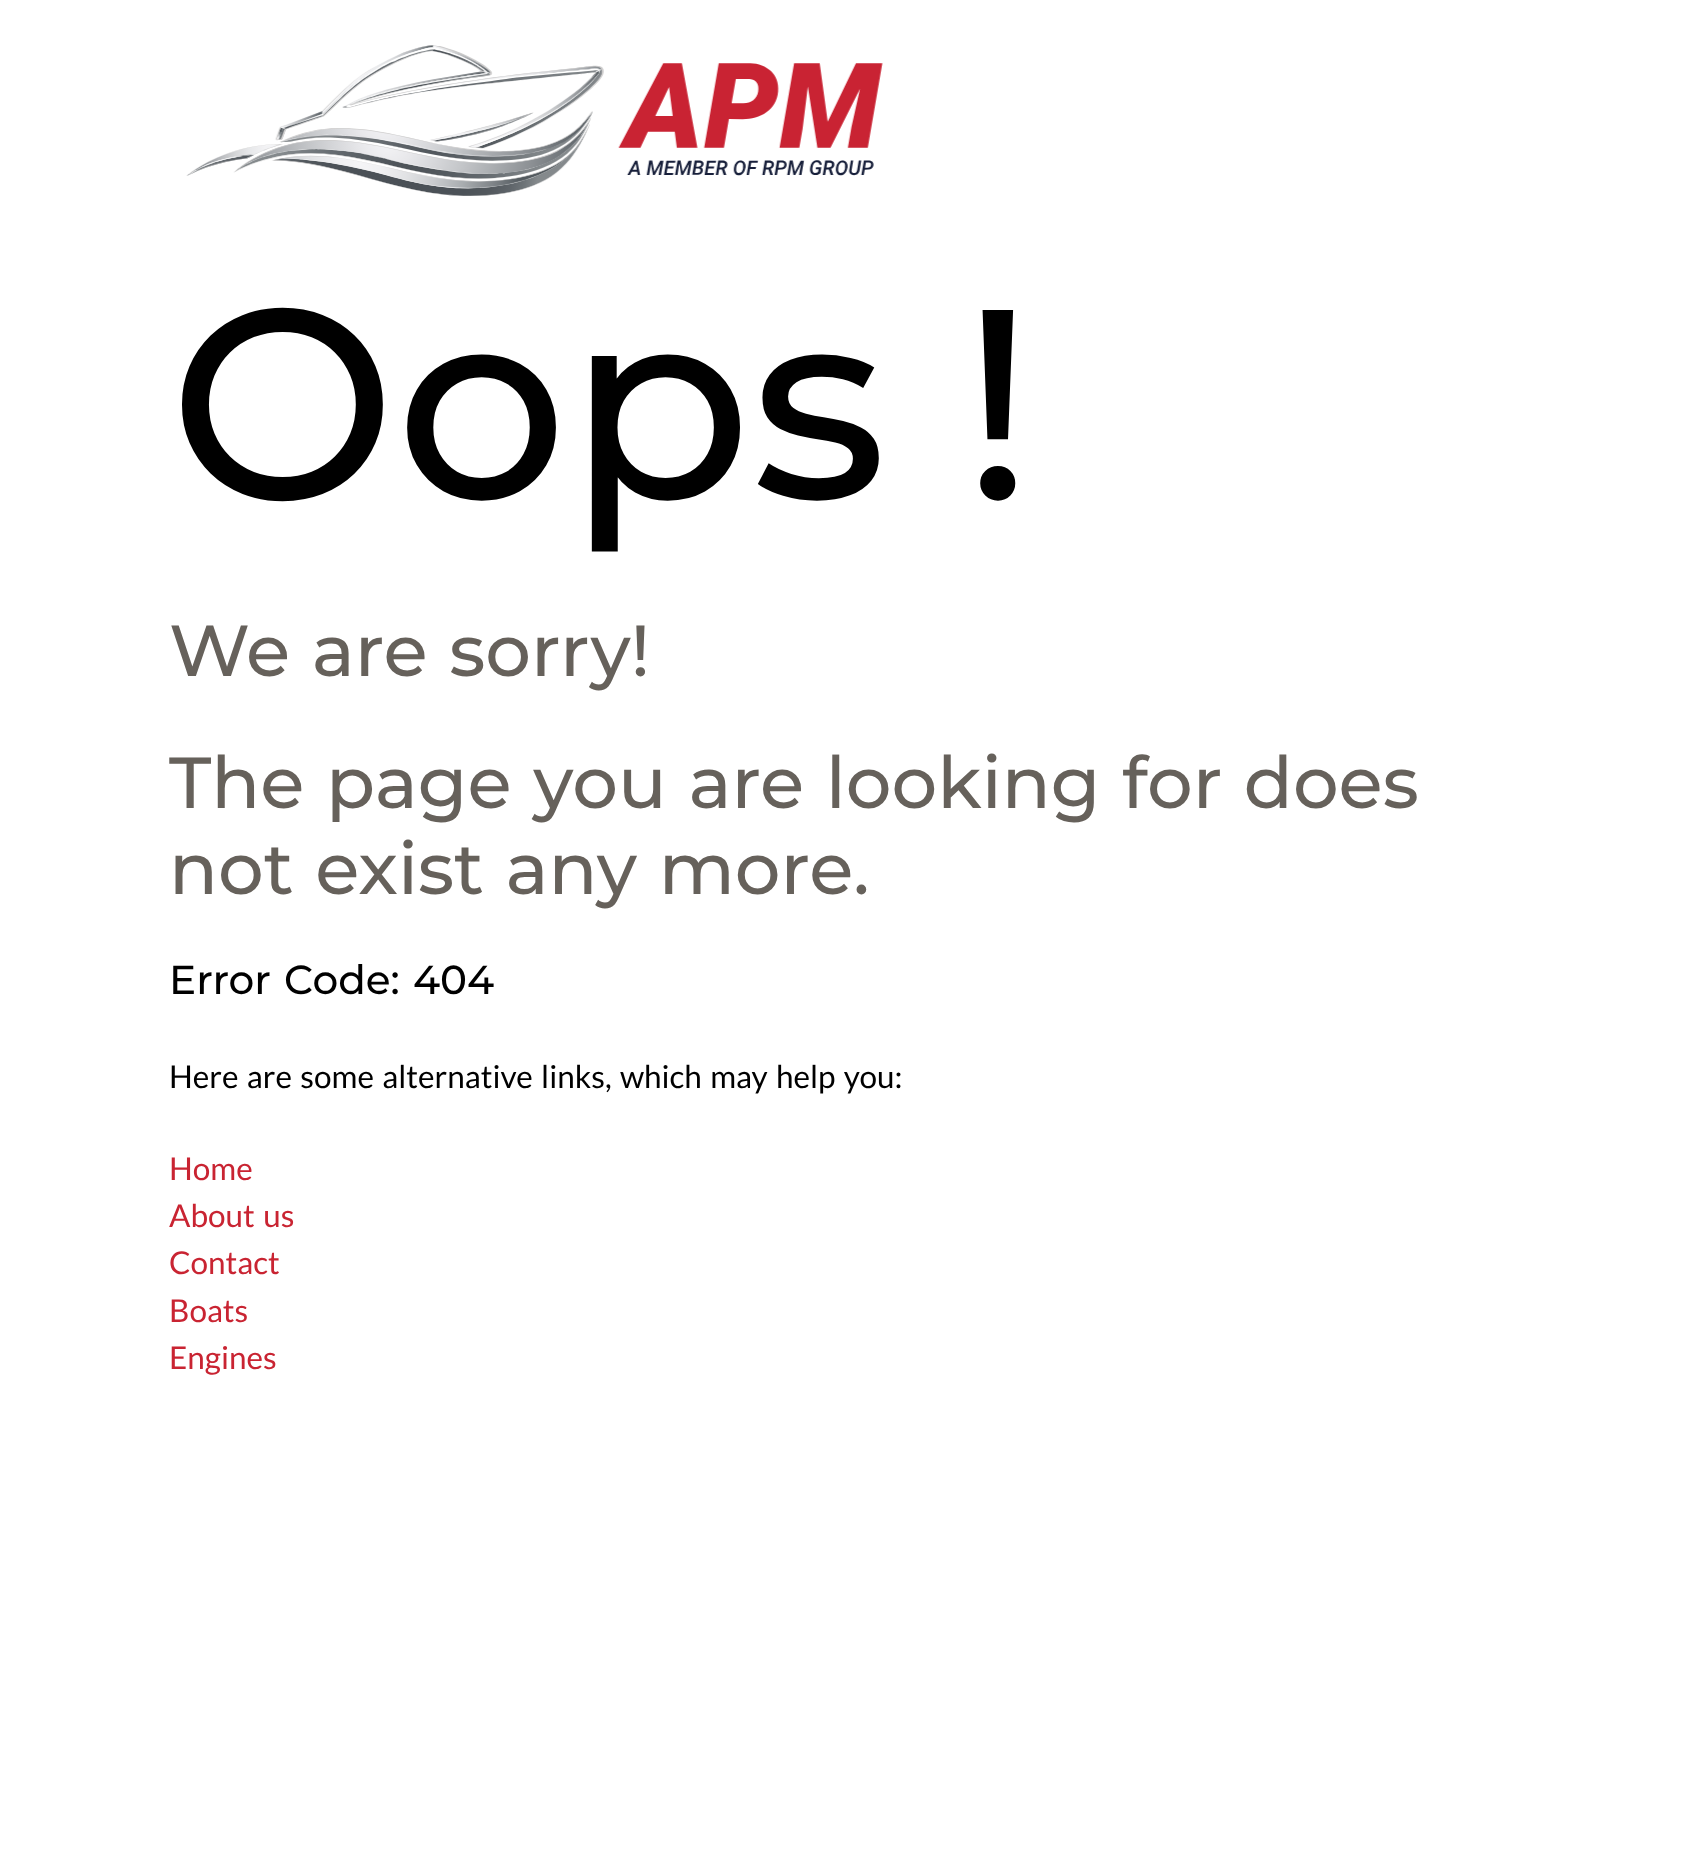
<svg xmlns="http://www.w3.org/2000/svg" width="1690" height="1876">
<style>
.a{font:500 270px Montserrat;fill:#000}
.b{font:500 72px Montserrat;fill:#66615b}
.c{font:500 40.5px Montserrat;fill:#000}
.d{font:31.5px Lato;fill:#000}
.e{font:31.5px Lato;fill:#c92432}
</style>
<rect width="100%" height="100%" fill="#fff"/>
<image href="1.png" x="186" y="45" width="697" height="151"/>
<text class="a" x="169" y="499" word-spacing="2.25">Oops !</text>
<text class="b" x="169" y="676" word-spacing="2.25">We are sorry!</text>
<text class="b" x="169" y="808" word-spacing="2.25">The page you are looking for does</text>
<text class="b" x="169" y="894" word-spacing="2.25">not exist any more.</text>
<text class="c" x="169" y="994" word-spacing="2.25">Error Code: 404</text>
<text class="d" x="169" y="1088" word-spacing="2.25">Here are some alternative links, which may help you:</text>
<text class="e" x="169" y="1180">Home</text>
<text class="e" x="169" y="1227" word-spacing="2.25">About us</text>
<text class="e" x="169" y="1274">Contact</text>
<text class="e" x="169" y="1322">Boats</text>
<text class="e" x="169" y="1369">Engines</text>
</svg>
